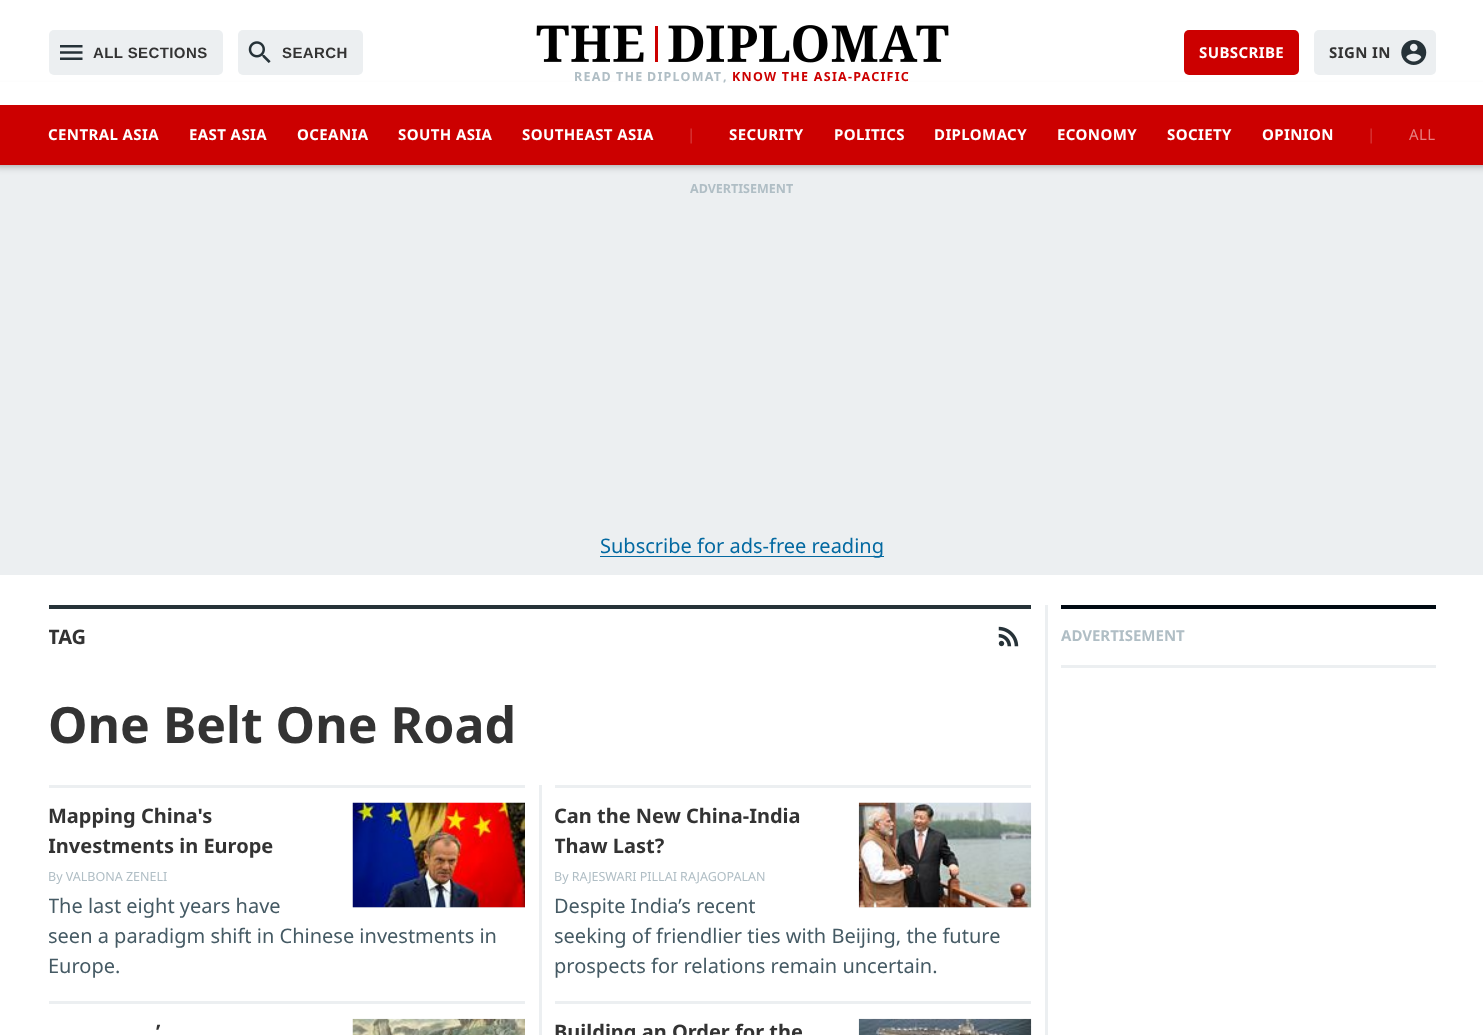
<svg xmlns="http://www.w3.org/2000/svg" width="1483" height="1035">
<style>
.a{font:bold 15px Liberation Sans;letter-spacing:0.4px;fill:#333}
.b{font:bold 15px Noto Sans;letter-spacing:0.4px;fill:#fff}
.c{font:bold 15px Noto Sans;letter-spacing:0.4px;fill:#333}
.d{font:bold 12.5px Noto Sans;letter-spacing:1.25px;fill:#b0bec5}
.e{font:bold 12.5px Noto Sans;letter-spacing:1.25px;fill:#c00}
.f{font:15px Noto Sans;letter-spacing:0.4px;fill:#d94040}
.g{font:15px Noto Sans;letter-spacing:0.4px;fill:#e68080}
.h{font:bold 12.5px Noto Sans;fill:#b0bec5}
.i{font:20px Noto Sans;fill:#0369a1}
.j{font:bold 20px Noto Sans;fill:#333}
.k{font:bold 50px Noto Sans;fill:#333}
.l{font:12.5px Noto Sans;fill:#b0bec5}
.m{font:20px Noto Sans;fill:#455a64}
.n{font:bold 15px Noto Sans;fill:#b0bec5}
</style>
<defs>
<clipPath id="clip1"><path d="M49 609h982v60H49z"/></clipPath>
<clipPath id="clip2"><path d="M49 788h476v213H49z"/></clipPath>
<clipPath id="clip3"><path d="M555 788h476v213H555z"/></clipPath>
</defs>
<rect width="100%" height="100%" fill="#fff"/>
<path fill="#eceff1" d="M0 165h1483v410H0z"/>
<path fill="#00000066" filter="blur(4px)" d="M-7 90h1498v75H-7z"/>
<path fill="#fff" d="M0 82h1483v23H0z"/>
<rect fill="#eceff1" x="49" y="30" width="174" height="45" rx="5"/>
<image href="1.png" x="60" y="45" width="23" height="15"/>
<rect fill="#eceff1" x="238" y="30" width="125" height="45" rx="5"/>
<image href="2.png" x="248" y="41" width="23" height="22"/>
<rect fill="#c00" x="1184" y="30" width="115" height="45" rx="5"/>
<rect fill="#eceff1" x="1314" y="30" width="122" height="45" rx="5"/>
<image href="3.png" x="1401" y="40" width="26" height="25"/>
<image href="4.png" x="536" y="25" width="413" height="38"/>
<path fill="#c00" d="M0 105h1483v60H0z"/>
<path fill="#0369a1" d="M600 556h284v1H600z"/>
<path fill="#263238" d="M49 605h982v4H49z"/>
<image href="5.png" x="998" y="626" width="21" height="21"/>
<path fill="#eceff1" d="M49 785h476v3H49z"/>
<path fill="#eceff1" d="M353 907h172v1H353z"/>
<image href="6.png" x="352" y="802" width="173" height="106"/>
<path fill="#eceff1" d="M539 785h3v250H539z"/>
<path fill="#eceff1" d="M555 785h476v3H555z"/>
<path fill="#eceff1" d="M859 907h172v1H859z"/>
<image href="7.png" x="858" y="802" width="174" height="106"/>
<path fill="#eceff1" d="M49 1001h476v3H49z"/>
<image href="8.png" x="352" y="1018" width="173" height="17"/>
<path fill="#eceff1" d="M555 1001h476v3H555z"/>
<image href="9.png" x="858" y="1018" width="174" height="17"/>
<path fill="#eceff1" d="M1045 605h3v430H1045z"/>
<path fill="#000a12" d="M1061 605h375v4H1061z"/>
<path fill="#eceff1" d="M1061 665h375v3H1061z"/>
<text class="a" x="93" y="58">ALL SECTIONS</text>
<text class="a" x="282" y="58">SEARCH</text>
<text class="b" x="1199" y="58">SUBSCRIBE</text>
<text class="c" x="1329" y="58">SIGN IN</text>
<text class="d" x="574" y="81">READ</text>
<text class="d" x="616" y="81" word-spacing="-1">THE DIPLOMAT</text>
<text class="d" x="723" y="81">,</text>
<text class="e" x="732" y="81">KNOW THE ASIA-PACIFIC</text>
<text class="b" x="48" y="140">CENTRAL ASIA</text>
<text class="b" x="189" y="140">EAST ASIA</text>
<text class="b" x="297" y="140">OCEANIA</text>
<text class="b" x="398" y="140">SOUTH ASIA</text>
<text class="b" x="522" y="140">SOUTHEAST ASIA</text>
<text class="f" x="687" y="140">|</text>
<text class="b" x="729" y="140">SECURITY</text>
<text class="b" x="834" y="140">POLITICS</text>
<text class="b" x="934" y="140">DIPLOMACY</text>
<text class="b" x="1057" y="140">ECONOMY</text>
<text class="b" x="1167" y="140">SOCIETY</text>
<text class="b" x="1262" y="140">OPINION</text>
<text class="f" x="1367" y="140">|</text>
<text class="g" x="1409" y="140">ALL</text>
<text class="h" x="690" y="193">ADVERTISEMENT</text>
<text class="i" x="600" y="553">Subscribe for ads-free reading</text>
<g clip-path="url(#clip1)">
<text class="j" x="48" y="644">TAG</text>
</g>
<text class="k" x="48" y="743">One Belt One Road</text>
<text class="j" x="48" y="823">Mapping China's</text>
<g clip-path="url(#clip2)">
<text class="j" x="48" y="853">Investments in Europe</text>
</g>
<text class="l" x="48" y="881">By VALBONA ZENELI</text>
<g clip-path="url(#clip2)">
<text class="m" x="48" y="913">The last eight years have</text>
</g>
<text class="m" x="48" y="943">seen a paradigm shift in Chinese investments in</text>
<text class="m" x="48" y="973">Europe.</text>
<text class="j" x="554" y="823">Can the New China-India</text>
<g clip-path="url(#clip3)">
<text class="j" x="554" y="853">Thaw Last?</text>
</g>
<text class="l" x="554" y="881">By RAJESWARI PILLAI RAJAGOPALAN</text>
<text class="m" x="554" y="913">Despite India’s recent</text>
<text class="m" x="554" y="943">seeking of friendlier ties with Beijing, the future</text>
<text class="m" x="554" y="973">prospects for relations remain uncertain.</text>
<text class="j" x="156" y="1039">’</text>
<text class="j" x="554" y="1039">Building an Order for the</text>
<text class="n" x="1061" y="641">ADVERTISEMENT</text>
</svg>
